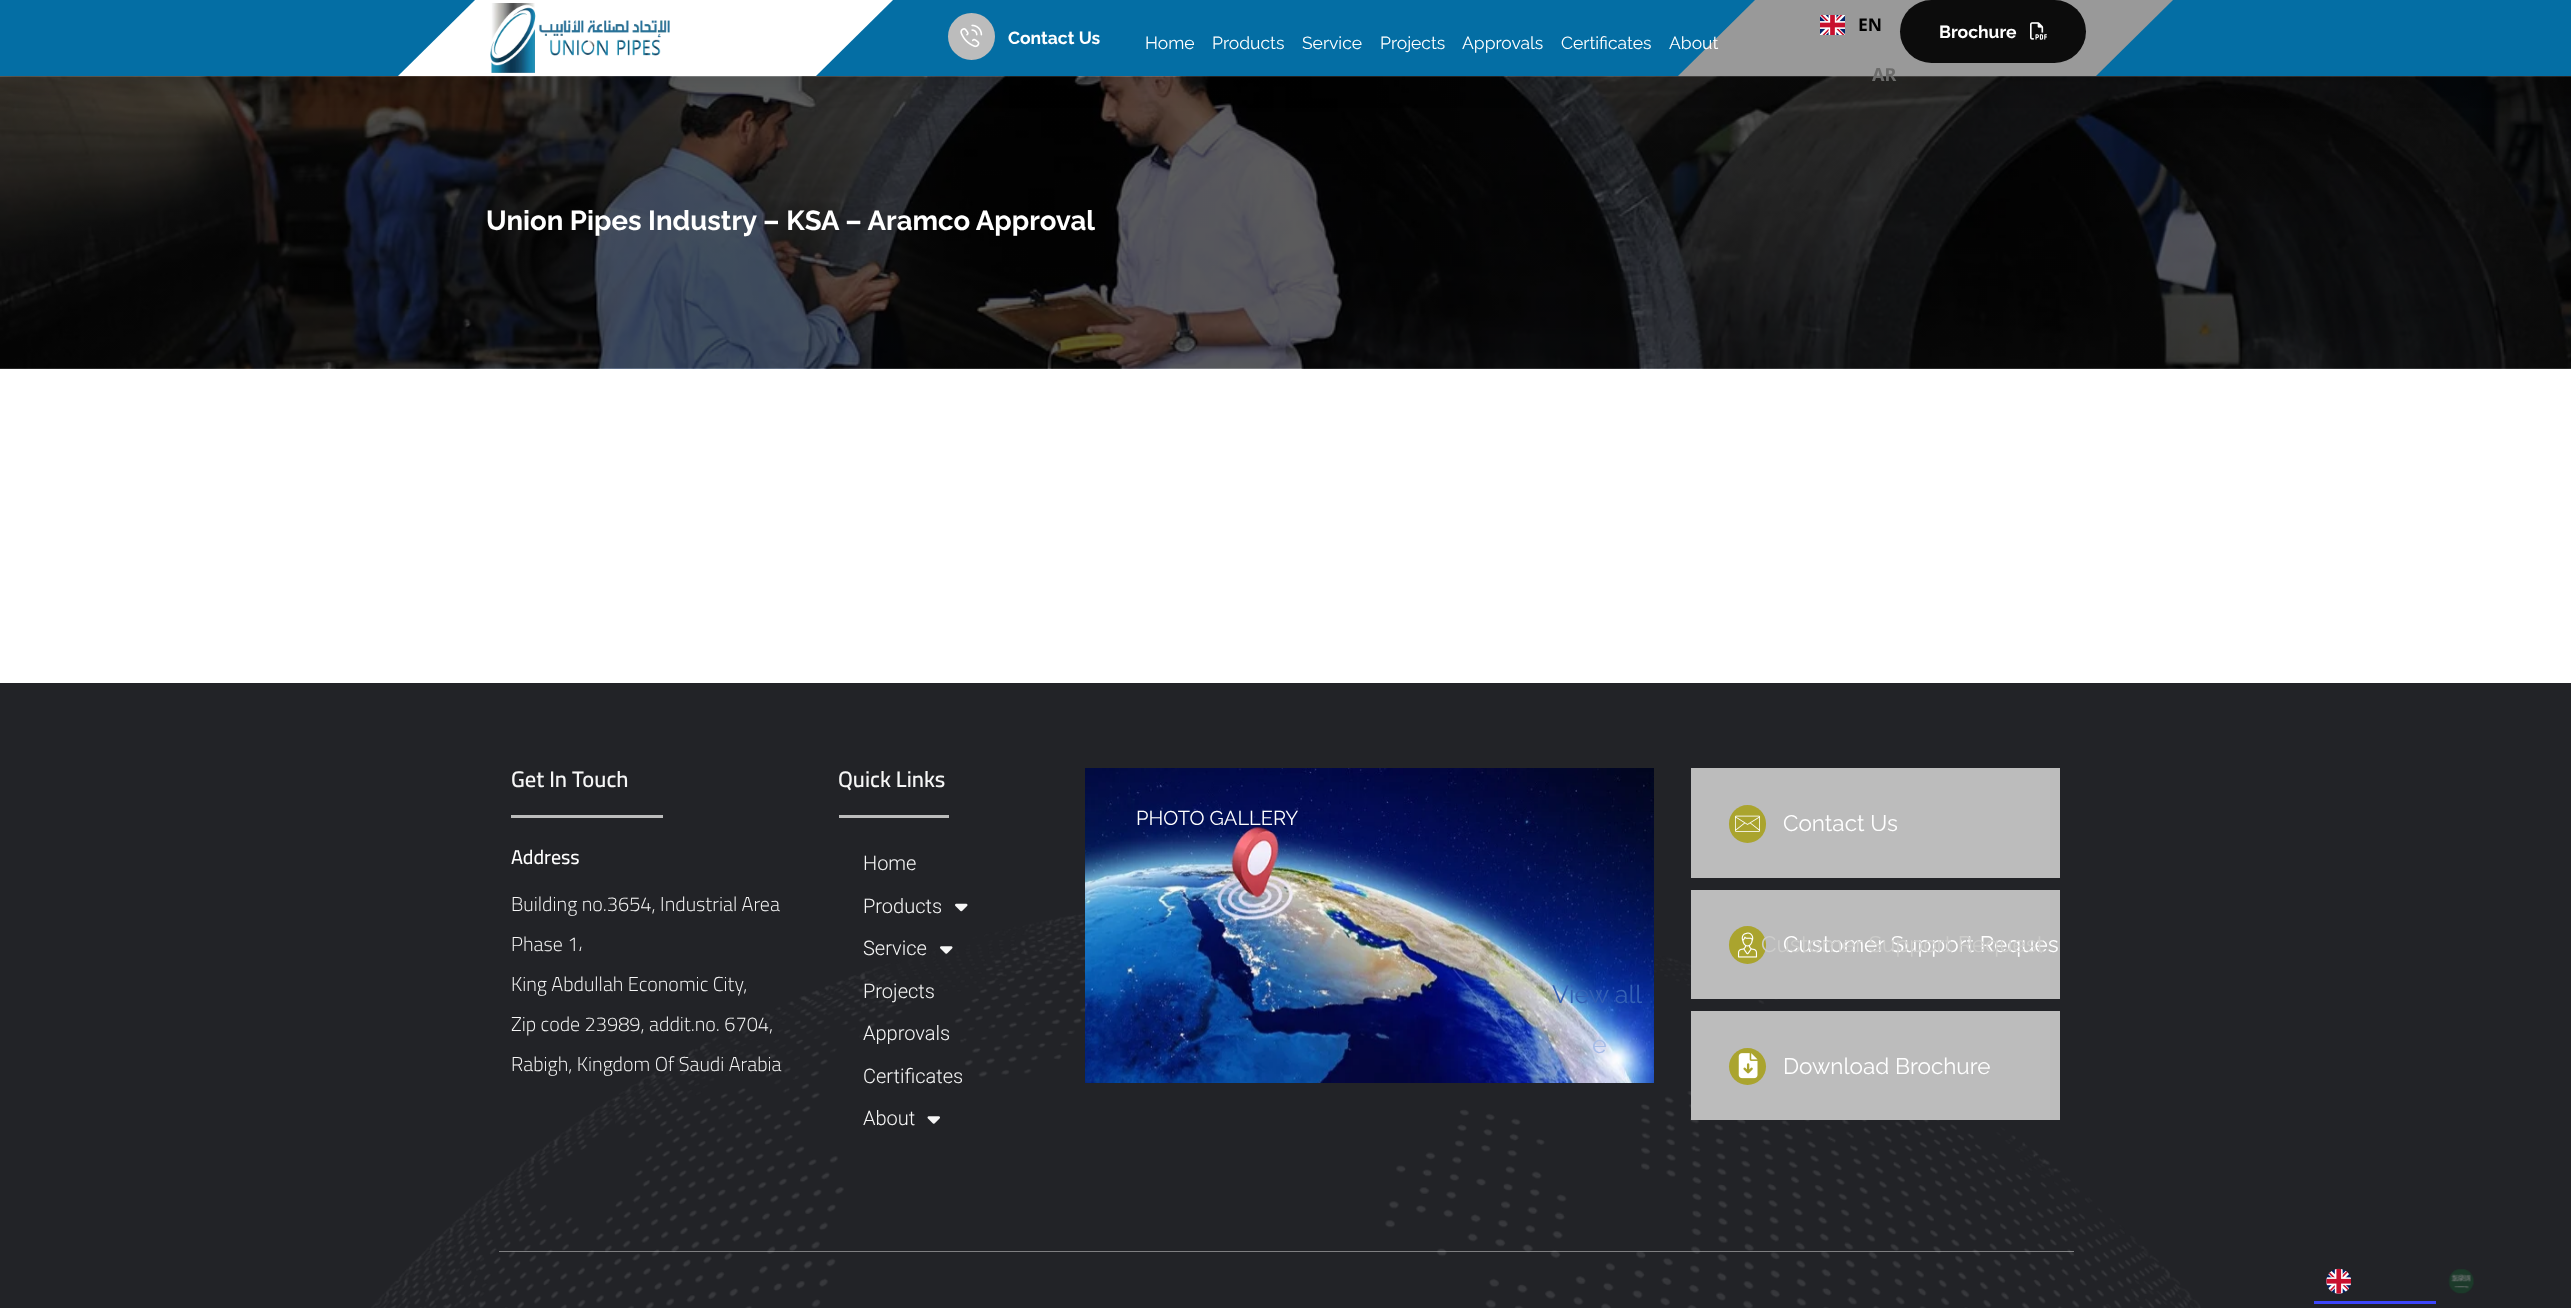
<svg xmlns="http://www.w3.org/2000/svg" width="2571" height="1308">
<style>
.a{font:bold 17.5px Raleway;fill:#fff}
.b{font:17.5px Raleway;fill:#fff}
.c{font:bold 17.5px Noto Sans;fill:#000}
.d{font:bold 18px Noto Sans;fill:#6c6c6b}
.e{font:bold 27.5px Raleway;fill:#fff}
.f{font:600 22.5px Cairo;fill:#f6f6f6}
.g{font:500 20px Cairo;fill:#fff}
.h{font:300 20px Cairo;fill:#f6f6f6}
.i{font:300 20px Roboto;fill:#f6f6f6}
.j{font:20px Raleway;fill:#fff}
.k{font:25px Raleway;fill:#3461b5}
.l{font:25px Raleway;fill:#a7bde7}
.m{font:22.5px Raleway;fill:#fff}
.n{font:22.5px Raleway;fill:#cdcdcb}
</style>
<rect width="100%" height="100%" fill="#fff"/>
<image href="5.png" x="0" y="76" width="2571" height="293"/>
<path fill="#0000001a" filter="blur(12.5px)" d="M0 9h2571v76H0z"/>
<path fill="#046ea4" d="M0 0h2571v76H0z"/>
<path fill="#fff" d="M521 0h249v76H521z"/>
<path fill="#fff" d="M475 0h122l-76 76h-123z"/>
<path fill="#fff" d="M770 0h123l-77 76h-122z"/>
<image href="1.png" x="490" y="3" width="180" height="70"/>
<circle fill="#bcbcbc" cx="971.5" cy="36.5" r="23.5"/>
<image href="2.png" x="960" y="24" width="23" height="24"/>
<path fill="#999" d="M1801 0h186v76H1801z"/>
<path fill="#999" d="M1755 0h122l-76 76h-123z"/>
<image href="3.png" x="1820" y="15" width="25" height="20"/>
<path fill="#999" d="M2050 0h123l-77 76h-122z"/>
<rect fill="#0c0c0c" x="1900" width="186" height="63" rx="31.5"/>
<image href="4.png" x="2030" y="22" width="17" height="18"/>
<path fill="#222327" d="M0 683h2571v625H0z"/>
<image href="6.png" x="371" y="914" width="1830" height="394"/>
<path fill="#bcbcbc" d="M511 815h152v3H511z"/>
<path fill="#bcbcbc" d="M839 815h110v3H839z"/>
<image href="7.png" x="955" y="903" width="13" height="9"/>
<image href="8.png" x="940" y="946" width="13" height="8"/>
<image href="9.png" x="927" y="1116" width="13" height="8"/>
<image href="10.png" x="1085" y="768" width="569" height="315"/>
<path fill="#bcbcbc" d="M1691 768h369v110H1691z"/>
<rect fill="#aaa42e" x="1729" y="805" width="37" height="38" rx="18.5"/>
<image href="11.png" x="1735" y="815" width="25" height="17"/>
<path fill="#bcbcbc" d="M1691 890h369v109H1691z"/>
<rect fill="#aaa42e" x="1729" y="926" width="37" height="38" rx="18.5"/>
<image href="12.png" x="1737" y="932" width="21" height="26"/>
<path fill="#bcbcbc" d="M1691 1011h369v109H1691z"/>
<circle fill="#aaa42e" cx="1747.5" cy="1066.5" r="18.5"/>
<image href="13.png" x="1738" y="1053" width="20" height="26"/>
<path fill="#f6f6f670" d="M499 1251h1575v1H499z"/>
<image href="14.png" x="2326" y="1268" width="25" height="26"/>
<path fill="#3d46fb" d="M2314 1301h122v3H2314z"/>
<image href="15.png" x="2448" y="1269" width="26" height="25"/>
<text class="a" x="1008" y="44">Contact Us</text>
<text class="b" x="1145" y="49">Home</text>
<text class="b" x="1212" y="49">Products</text>
<text class="b" x="1302" y="49">Service</text>
<text class="b" x="1380" y="49">Projects</text>
<text class="b" x="1462" y="49">Approvals</text>
<text class="b" x="1561" y="49">Certificates</text>
<text class="b" x="1669" y="49">About</text>
<text class="c" x="1858" y="31">EN</text>
<text class="d" x="1872" y="81">AR</text>
<text class="a" x="1939" y="38">Brochure</text>
<text class="e" x="486" y="230">Union Pipes Industry – KSA – Aramco Approval</text>
<text class="f" x="511" y="787">Get In Touch</text>
<text class="g" x="511" y="864">Address</text>
<text class="h" x="511" y="911">Building no.3654, Industrial Area</text>
<text class="h" x="511" y="951">Phase 1،</text>
<text class="h" x="511" y="991">King Abdullah Economic City,</text>
<text class="h" x="511" y="1031">Zip code 23989, addit.no. 6704,</text>
<text class="h" x="511" y="1071">Rabigh, Kingdom Of Saudi Arabia</text>
<text class="f" x="838" y="787">Quick Links</text>
<text class="i" x="863" y="870">Home</text>
<text class="i" x="863" y="913">Products</text>
<text class="i" x="863" y="955">Service</text>
<text class="i" x="863" y="998">Projects</text>
<text class="i" x="863" y="1040">Approvals</text>
<text class="i" x="863" y="1083">Certificates</text>
<text class="i" x="863" y="1125">About</text>
<text class="j" x="1136" y="825">PHOTO GALLERY</text>
<text class="k" x="1552" y="1003">View all</text>
<text class="l" x="1592" y="1053">e</text>
<text class="m" x="1783" y="831">Contact Us</text>
<text class="m" x="1783" y="952">Customer Support Reques</text>
<text class="n" x="1761" y="952">Customer Support Request</text>
<text class="m" x="1783" y="1074">Download Brochure</text>
</svg>
